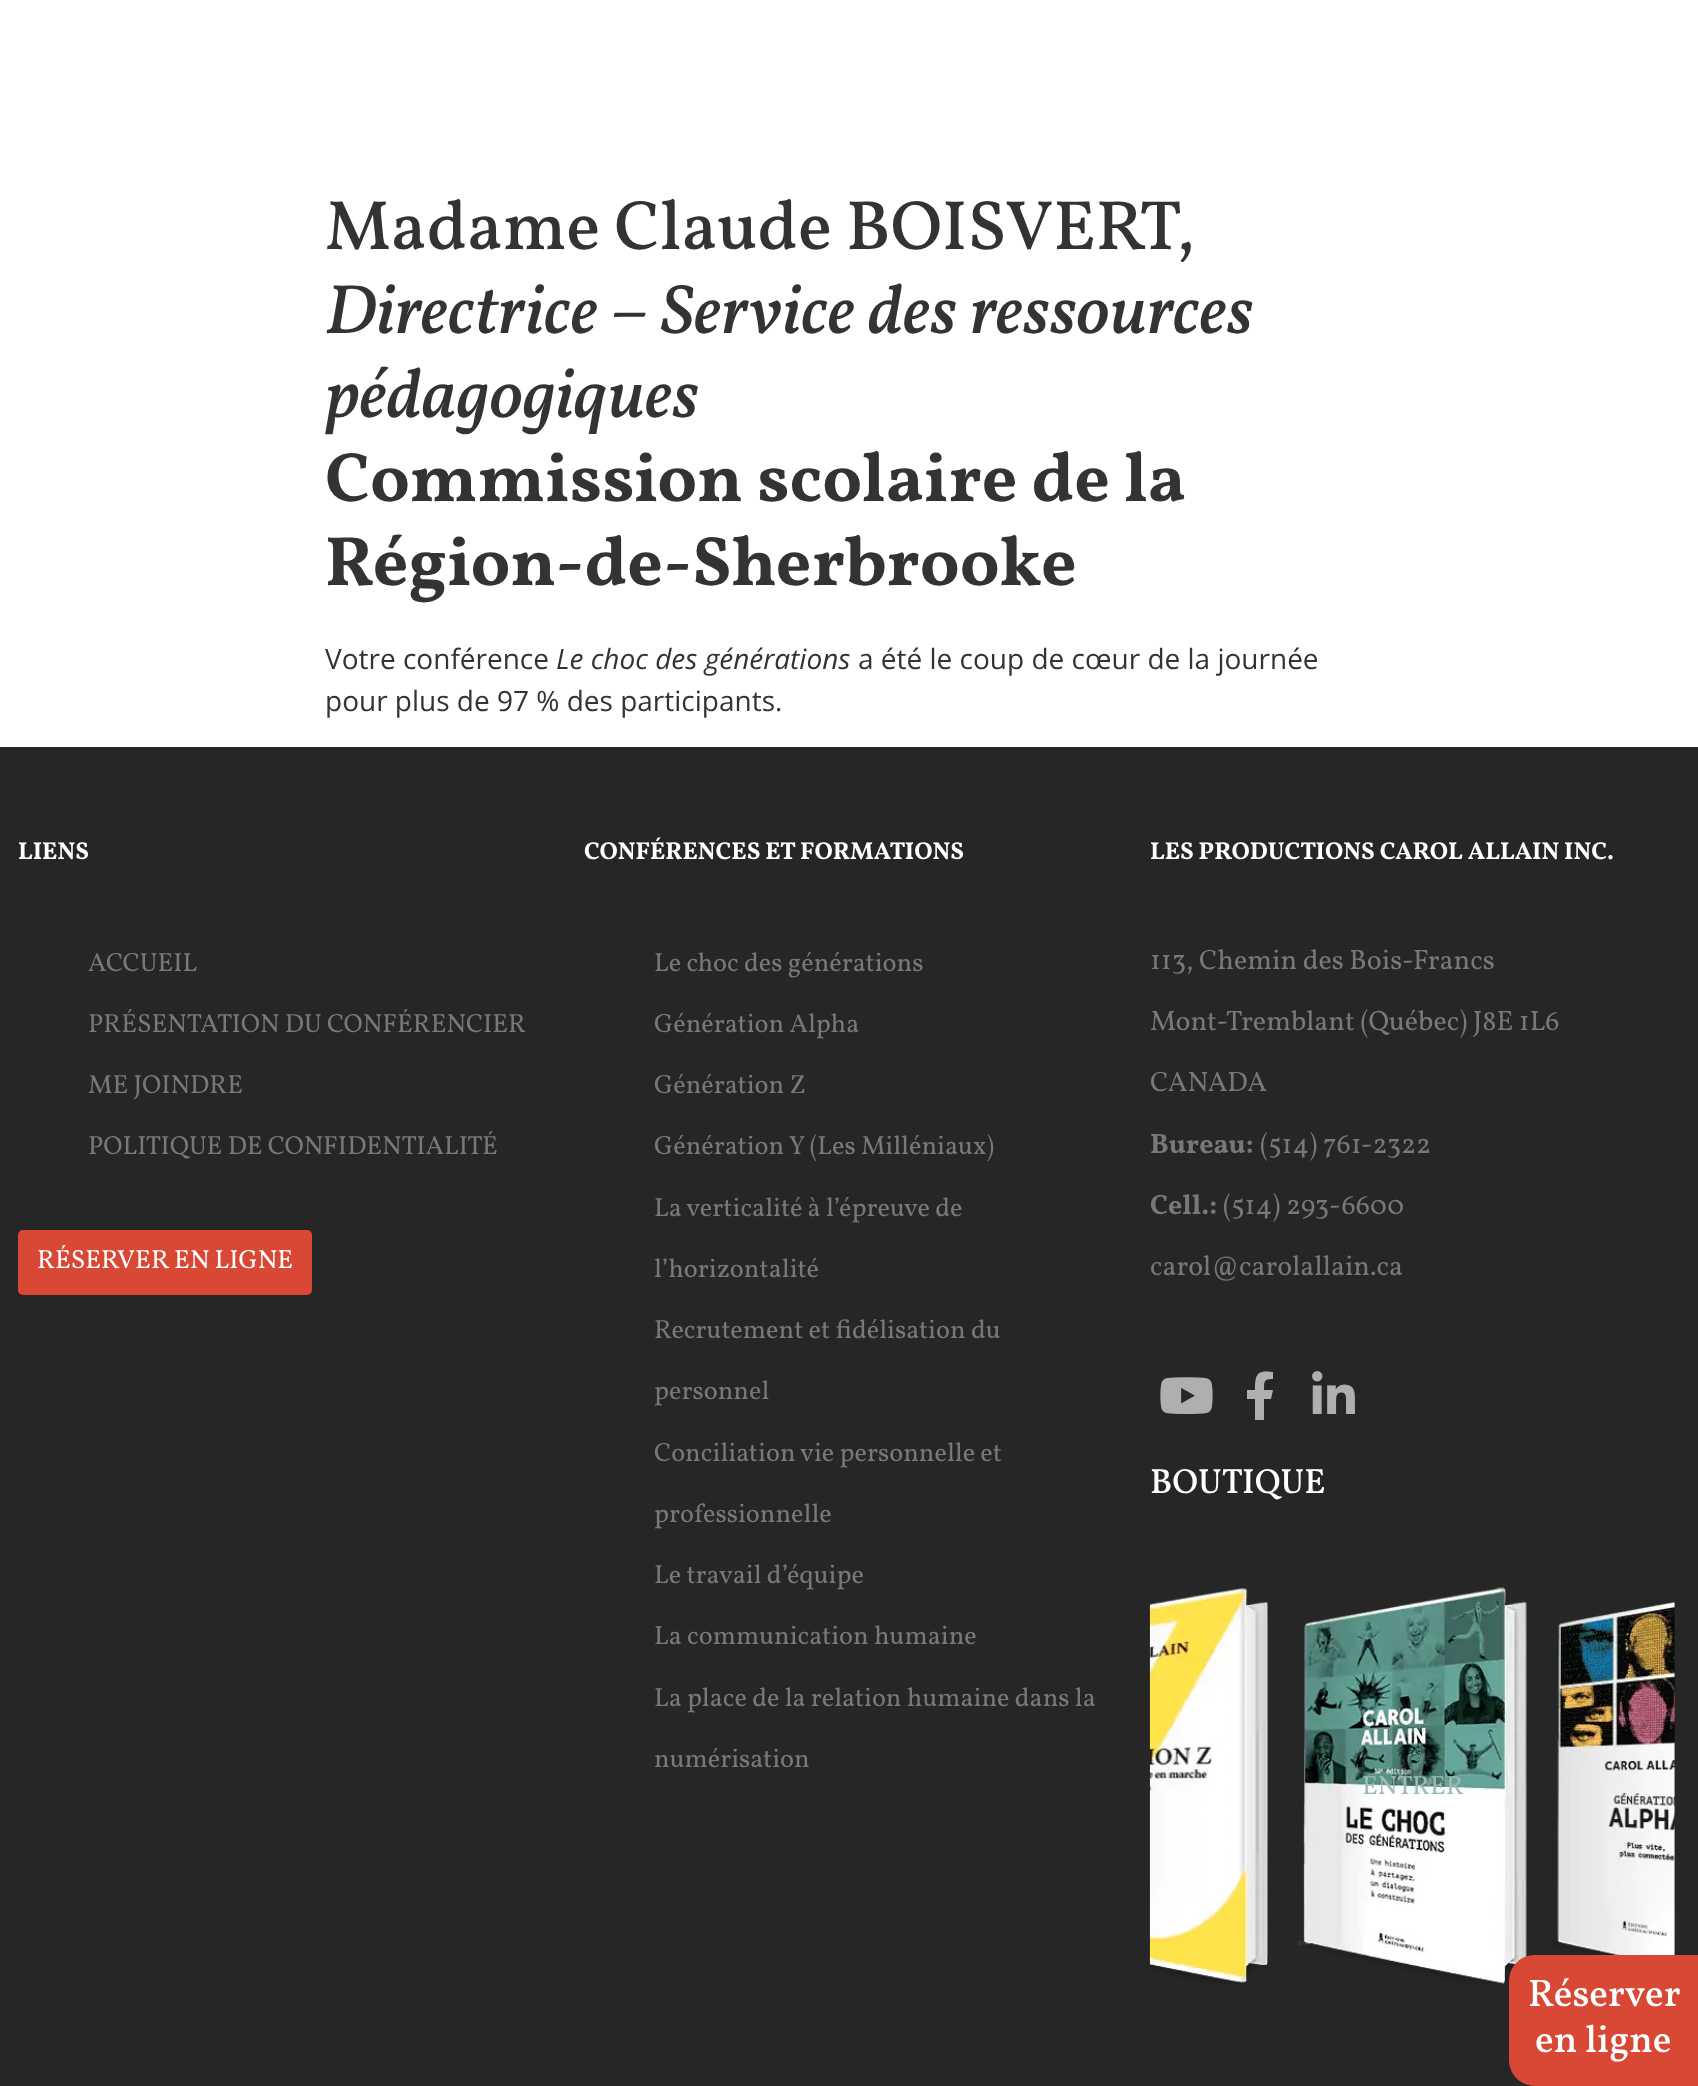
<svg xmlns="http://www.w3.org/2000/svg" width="1698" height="2086">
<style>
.a{font:500 70px Vollkorn;fill:#333}
.b{font:italic 500 70px Vollkorn;fill:#333}
.c{font:bold 70px Vollkorn;fill:#333}
.d{font:28px Open Sans;fill:#333}
.e{font:italic 28px Open Sans;fill:#333}
.f{font:bold 24.5px Vollkorn;fill:#fff}
.g{font:26.25px Vollkorn;fill:#787878}
.h{font:26.25px Vollkorn;fill:#fff}
.i{font:28px Vollkorn;fill:#787878}
.j{font:bold 28px Vollkorn;fill:#787878}
.k{font:500 35px Vollkorn;fill:#fff}
.l{font:26.25px Vollkorn;fill:#9fbbb6}
.m{font:500 38.5px Vollkorn;fill:#fff}
</style>
<rect width="100%" height="100%" fill="#fff"/>
<path fill="#262626" d="M0 747h1698v1339H0z"/>
<rect fill="#d94834" x="18" y="1230" width="294" height="65" rx="5"/>
<image href="1.png" x="1160" y="1377" width="53" height="37"/>
<path fill="#afafaf" d="M1271 1399h-7v21h-9v-21h-8v-9h8c0-16 2-20 18-18v7c-9 0-9 2-9 11h9z"/>
<image href="2.png" x="1312" y="1371" width="43" height="43"/>
<image href="3.png" x="1149" y="1587" width="526" height="398"/>
<path fill="#d94834" d="M1535 1955h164v131h-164c-14.5 0-26-11.5-26-26v-79c0-14.5 11.5-26 26-26z"/>
<text class="a" x="325" y="249">Madame Claude BOISVERT,</text>
<text class="b" x="325" y="333">Directrice – Service des ressources</text>
<text class="b" x="325" y="417">pédagogiques</text>
<text class="c" x="325" y="501">Commission scolaire de la</text>
<text class="c" x="325" y="585">Région-de-Sherbrooke</text>
<text class="d" x="325" y="669">Votre conférence</text>
<text class="e" x="556" y="669">Le choc des générations</text>
<text class="d" x="858" y="669">a été le coup de cœur de la journée</text>
<text class="d" x="325" y="711">pour plus de 97 % des participants.</text>
<text class="f" x="18" y="859">LIENS</text>
<text class="g" x="88" y="971">ACCUEIL</text>
<text class="g" x="88" y="1032">PRÉSENTATION DU CONFÉRENCIER</text>
<text class="g" x="88" y="1093">ME JOINDRE</text>
<text class="g" x="88" y="1154">POLITIQUE DE CONFIDENTIALITÉ</text>
<text class="h" x="37" y="1268">RÉSERVER EN LIGNE</text>
<text class="f" x="584" y="859">CONFÉRENCES ET FORMATIONS</text>
<text class="g" x="654" y="971">Le choc des générations</text>
<text class="g" x="654" y="1032">Génération Alpha</text>
<text class="g" x="654" y="1093">Génération Z</text>
<text class="g" x="654" y="1154">Génération Y (Les Milléniaux)</text>
<text class="g" x="654" y="1216">La verticalité à l’épreuve de</text>
<text class="g" x="654" y="1277">l’horizontalité</text>
<text class="g" x="654" y="1338">Recrutement et fidélisation du</text>
<text class="g" x="654" y="1399">personnel</text>
<text class="g" x="654" y="1461">Conciliation vie personnelle et</text>
<text class="g" x="654" y="1522">professionnelle</text>
<text class="g" x="654" y="1583">Le travail d’équipe</text>
<text class="g" x="654" y="1644">La communication humaine</text>
<text class="g" x="654" y="1706">La place de la relation humaine dans la</text>
<text class="g" x="654" y="1767">numérisation</text>
<text class="f" x="1150" y="859">LES PRODUCTIONS CAROL ALLAIN INC.</text>
<text class="i" x="1150" y="969">113, Chemin des Bois-Francs</text>
<text class="i" x="1150" y="1030">Mont-Tremblant (Québec) J8E 1L6</text>
<text class="i" x="1150" y="1091">CANADA</text>
<text class="j" x="1150" y="1153">Bureau:</text>
<text class="i" x="1260" y="1153">(514) 761-2322</text>
<text class="j" x="1150" y="1214">Cell.:</text>
<text class="i" x="1223" y="1214">(514) 293-6600</text>
<text class="i" x="1150" y="1275">carol@carolallain.ca</text>
<text class="k" x="1150" y="1493">BOUTIQUE</text>
<text class="l" x="1362" y="1794">ENTRER</text>
<text class="m" x="1528" y="2006">Réserver</text>
<text class="m" x="1535" y="2052">en ligne</text>
</svg>
